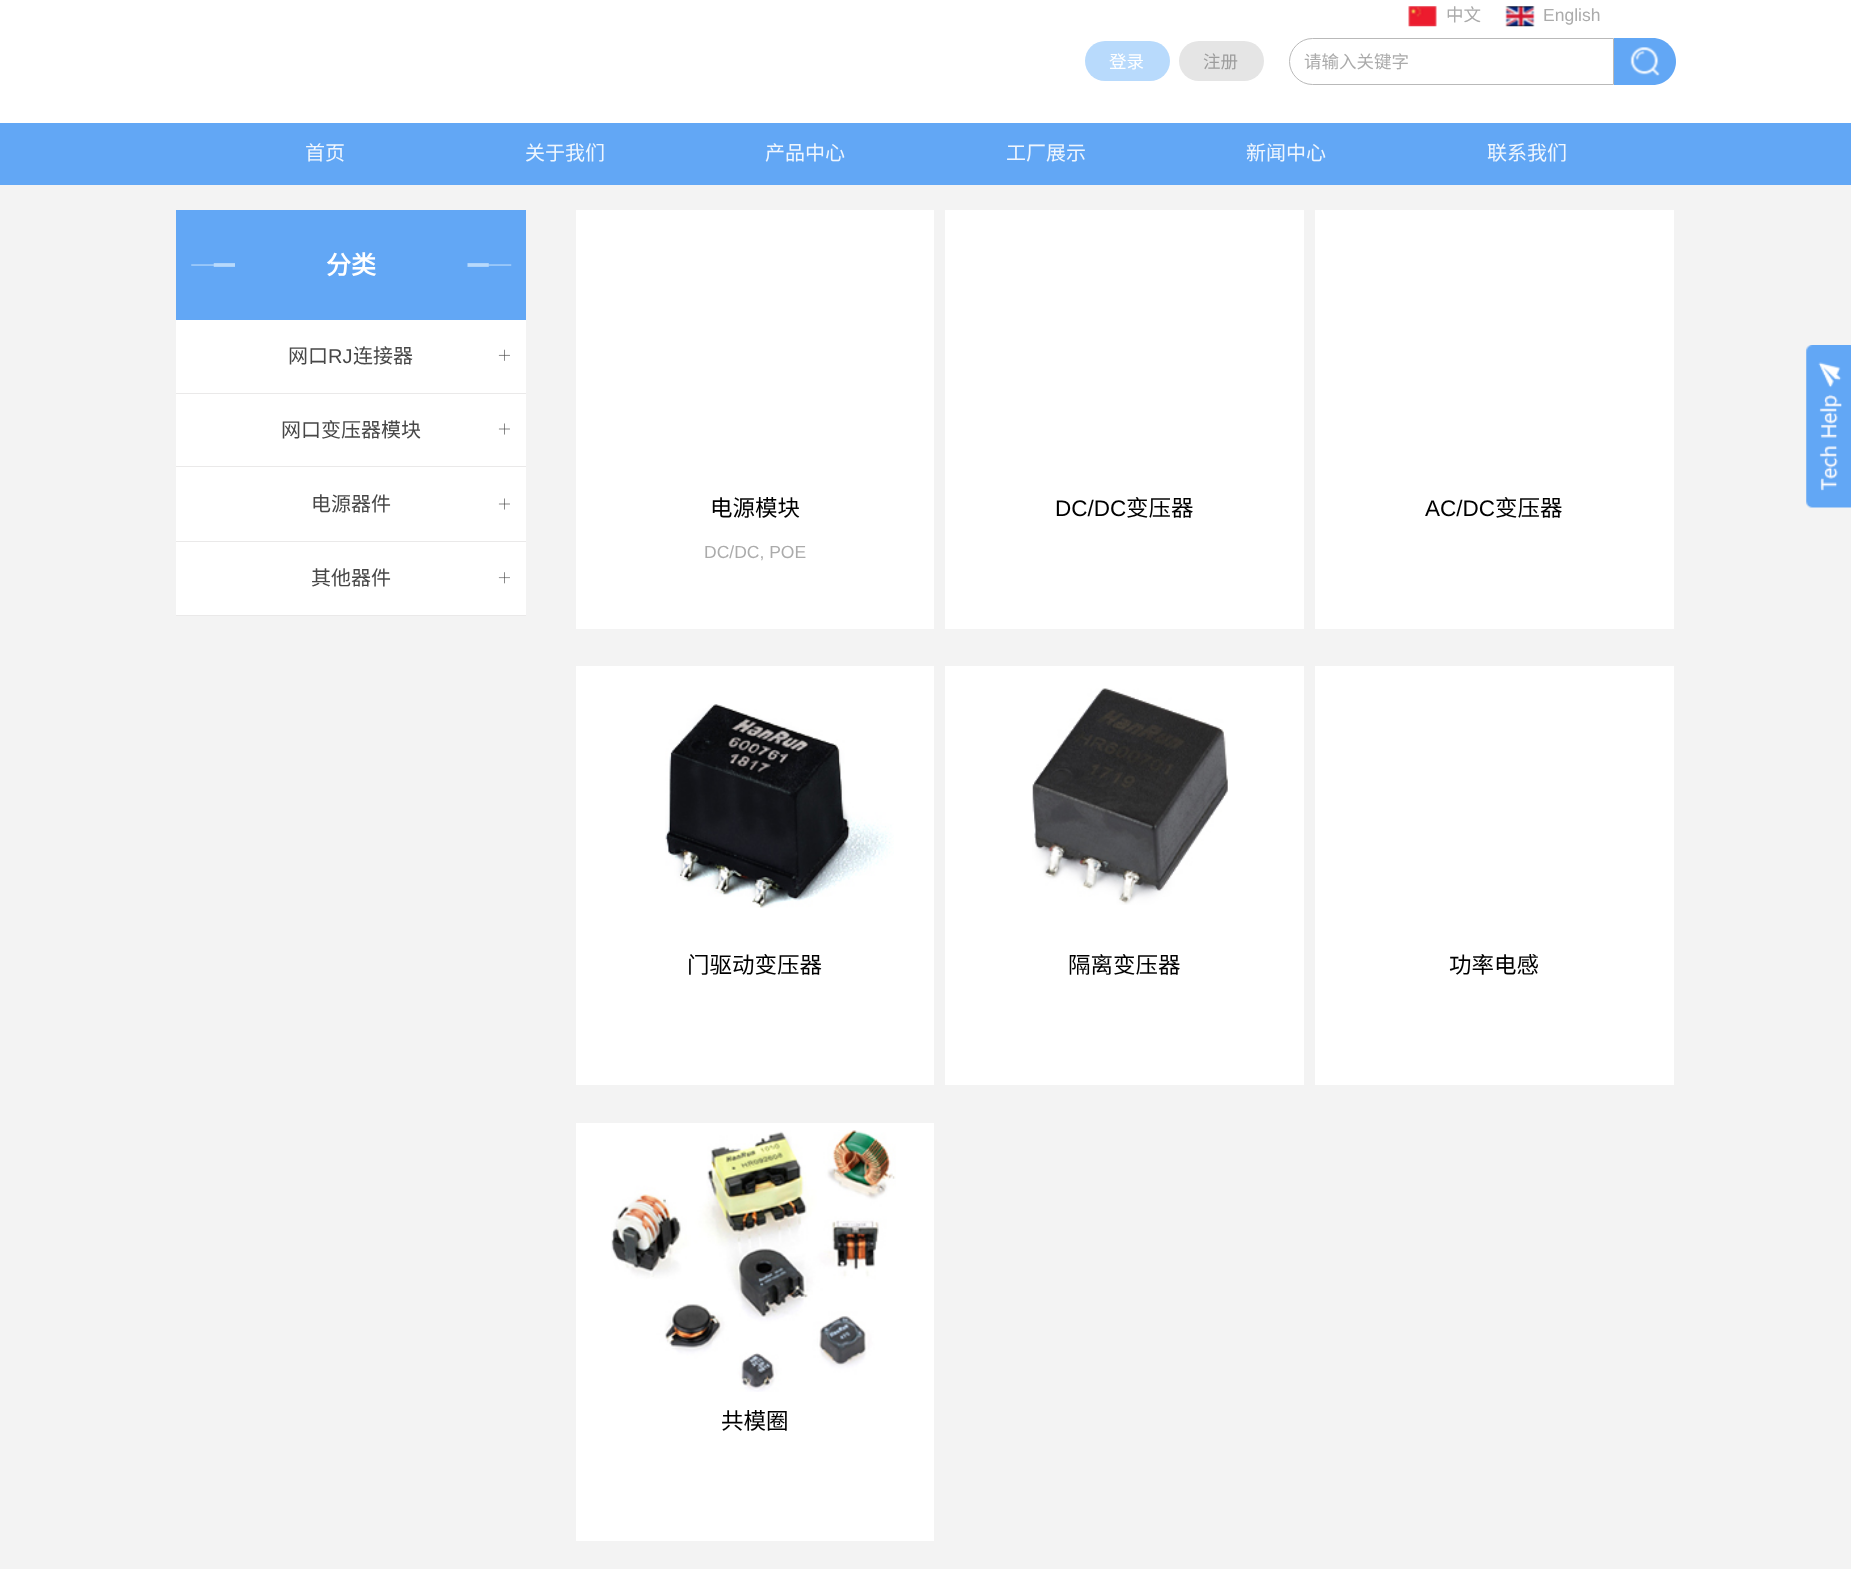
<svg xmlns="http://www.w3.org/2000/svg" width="1851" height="1569">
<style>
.a{font:17.5px Noto Sans CJK SC;fill:#ababab}
.b{font:17.5px Liberation Sans;fill:#ababab}
.c{font:17.5px Noto Sans CJK SC;fill:#fff}
.d{font:17.5px Noto Sans CJK SC;fill:#9d9d9d}
.e{font:20px Noto Sans CJK SC;fill:#eff6fe}
.f{font:bold 25px Noto Sans CJK SC;fill:#fff}
.g{font:20px Noto Sans CJK SC;fill:#474747}
.h{font:20px Liberation Sans;fill:#474747}
.i{font:22.5px Noto Sans CJK SC;fill:#000}
.j{font:22.5px Liberation Sans;fill:#000}
</style>
<rect width="100%" height="100%" fill="#f3f3f3"/>
<path fill="#fff" d="M0 0h1851v123H0z"/>
<image href="1.png" x="1408" y="6" width="29" height="21"/>
<image href="2.png" x="1505" y="6" width="30" height="21"/>
<rect fill="#b8dafc" x="1085" y="41" width="85" height="40" rx="20"/>
<rect fill="#e5e5e5" x="1179" y="41" width="85" height="40" rx="20"/>
<path fill="none" stroke="#b9b9b9" d="M1312.5 38.5h301v46h-301c-12.5 0-23-10.5-23-23c0-12.5 10.5-23 23-23z"/>
<path fill="#62a7f5" d="M1614 38h38.5c13 0 23.5 10.5 23.5 23.5c0 13-10.5 23.5-23.5 23.5h-38.5z"/>
<image href="3.png" x="1630" y="47" width="30" height="29"/>
<path fill="#62a7f5" d="M0 123h1851v62H0z"/>
<path fill="#62a7f5" d="M176 210h350v110H176z"/>
<image href="4.png" x="191" y="263" width="44" height="4"/>
<image href="5.png" x="467" y="263" width="45" height="4"/>
<path fill="#fff" d="M176 320h350v295H176z"/>
<path fill="#eae9e9" d="M176 393h350v1H176z"/>
<image href="6.png" x="498" y="349" width="12" height="12"/>
<path fill="#eae9e9" d="M176 466h350v1H176z"/>
<image href="7.png" x="498" y="423" width="12" height="12"/>
<path fill="#eae9e9" d="M176 541h350v1H176z"/>
<image href="7.png" x="498" y="498" width="12" height="12"/>
<path fill="#eae9e9" d="M176 615h350v1H176z"/>
<image href="8.png" x="498" y="572" width="12" height="12"/>
<path fill="#fff" d="M576 210h358v419H576z"/>
<path fill="#fff" d="M945 210h359v419H945z"/>
<path fill="#fff" d="M1315 210h359v419H1315z"/>
<path fill="#fff" d="M576 666h358v419H576z"/>
<image href="9.png" x="665" y="704" width="229" height="204"/>
<path fill="#fff" d="M945 666h359v419H945z"/>
<image href="10.png" x="1032" y="688" width="196" height="217"/>
<path fill="#fff" d="M1315 666h359v419H1315z"/>
<path fill="#fff" d="M576 1123h358v418H576z"/>
<image href="11.png" x="611" y="1130" width="285" height="262"/>
<image href="12.png" x="1806" y="345" width="45" height="163"/>
<text class="a" x="1446" y="21">中文</text>
<text class="b" x="1543" y="21">English</text>
<text class="c" x="1109" y="68">登录</text>
<text class="d" x="1203" y="68">注册</text>
<text class="a" x="1304" y="68">请输入关键字</text>
<text class="e" x="305" y="160">首页</text>
<text class="e" x="525" y="160">关于我们</text>
<text class="e" x="765" y="160">产品中心</text>
<text class="e" x="1006" y="160">工厂展示</text>
<text class="e" x="1246" y="160">新闻中心</text>
<text class="e" x="1487" y="160">联系我们</text>
<text class="f" x="326" y="274">分类</text>
<text class="g" x="288" y="363">网口</text>
<text class="h" x="328" y="363">RJ</text>
<text class="g" x="353" y="363">连接器</text>
<text class="g" x="281" y="437">网口变压器模块</text>
<text class="g" x="311" y="511">电源器件</text>
<text class="g" x="311" y="585">其他器件</text>
<text class="i" x="710" y="516">电源模块</text>
<text class="b" x="704" y="558">DC/DC, POE</text>
<text class="j" x="1055" y="516">DC/DC</text>
<text class="i" x="1126" y="516">变压器</text>
<text class="j" x="1425" y="516">AC/DC</text>
<text class="i" x="1495" y="516">变压器</text>
<text class="i" x="687" y="973">门驱动变压器</text>
<text class="i" x="1068" y="973">隔离变压器</text>
<text class="i" x="1449" y="973">功率电感</text>
<text class="i" x="721" y="1429">共模圈</text>
</svg>
